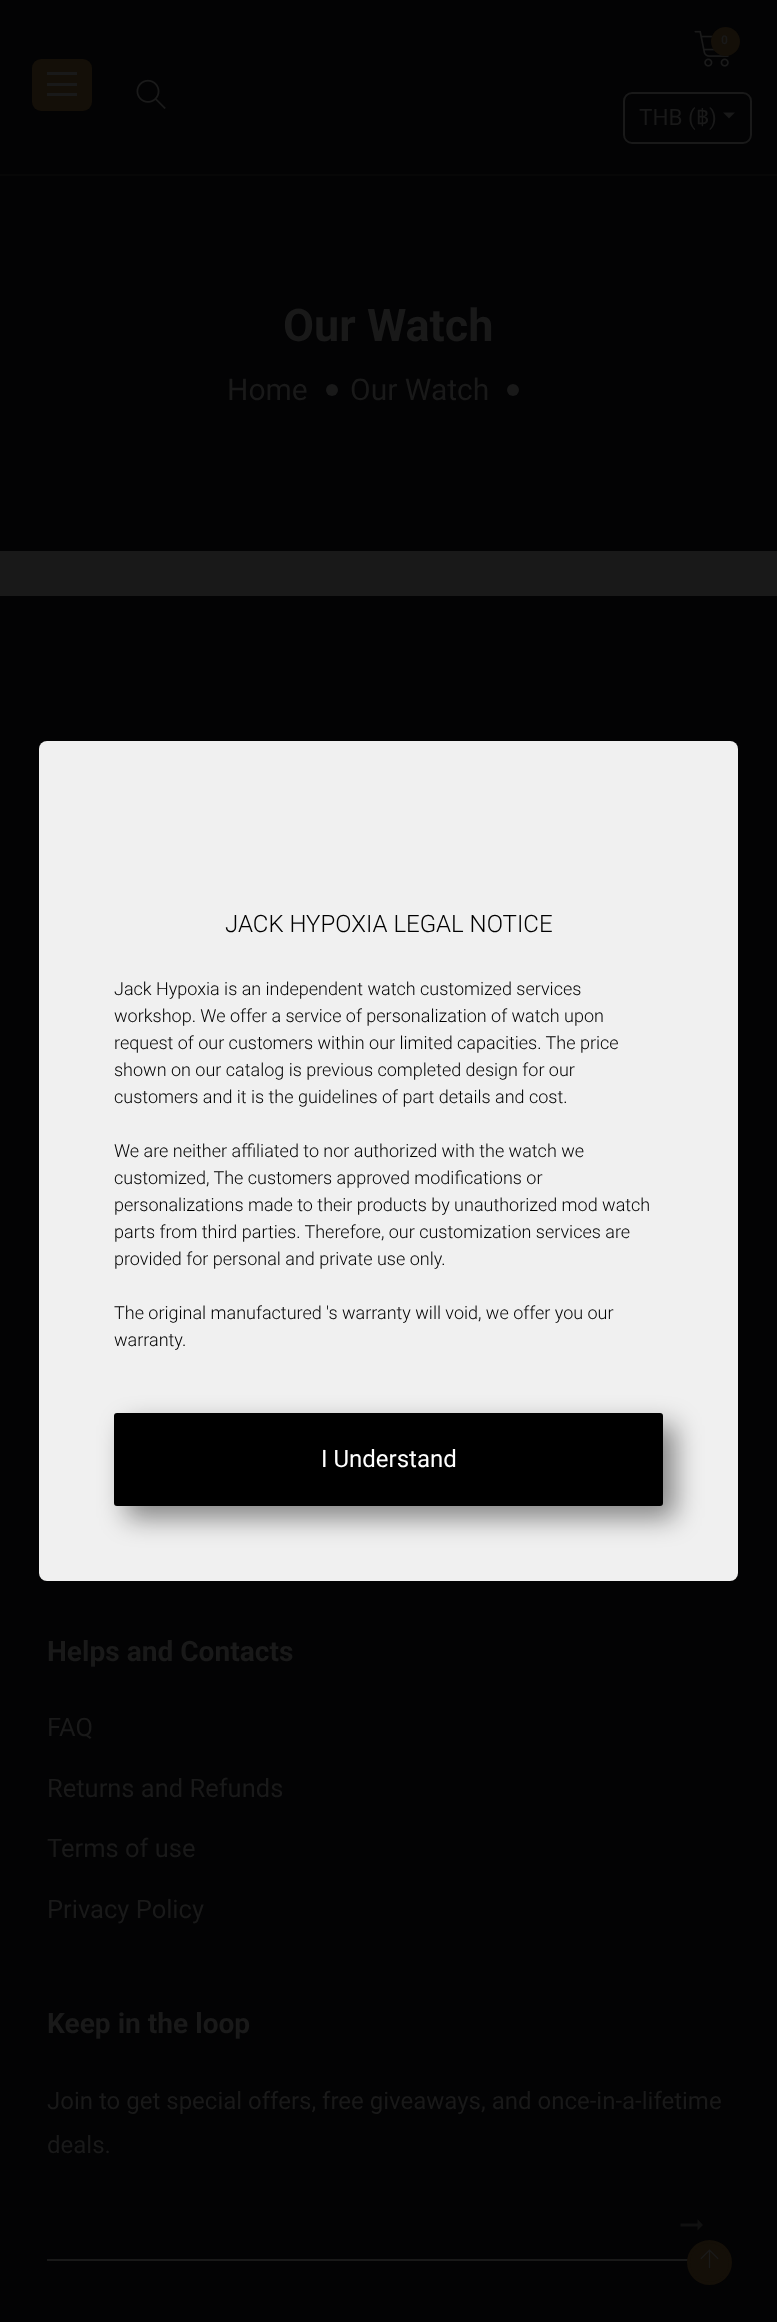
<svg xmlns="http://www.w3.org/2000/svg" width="777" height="2322">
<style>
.a{font:bold 12px Roboto;fill:#191919}
.b{font:22.5px Roboto;fill:#191919}
.c{font:22.5px Noto Sans Thai;fill:#191919}
.d{font:300 24px Roboto;fill:#000}
.e{font:300 18px Roboto;fill:#000}
.f{font:24px Roboto;fill:#fff}
.g{font:bold 45px Roboto;fill:#191919}
.h{font:30px Roboto;fill:#191919}
.i{font:bold 28.1px Roboto;fill:#191919}
.j{font:25.5px Roboto;fill:#191919}
.k{font:24px Roboto;fill:#191919}
</style>
<rect width="100%" height="100%" fill="#030304"/>
<path fill="#070707" d="M0 174h777v2H0z"/>
<rect fill="#140f08" x="32" y="59" width="60" height="52" rx="9"/>
<path fill="#191919" d="M47 72h30v3H47z"/>
<path fill="#191919" d="M47 83h30v3H47z"/>
<path fill="#191919" d="M47 93h30v3H47z"/>
<image href="1.png" x="136" y="79" width="30" height="30"/>
<image href="2.png" x="694" y="30" width="35" height="37"/>
<circle fill="#140f08" cx="725.5" cy="41.5" r="14.5"/>
<rect fill="none" stroke="#191919" stroke-width="2" x="624" y="93" width="127" height="50" rx="8"/>
<path fill="#191919" d="M723 112.5h12l-6 6z"/>
<rect fill="#f0f0f0" x="39" y="741" width="699" height="840" rx="8"/>
<rect fill="#00000073" filter="blur(13.5px)" x="126" y="1425" width="549" height="93" rx="3"/>
<rect fill="#000" stroke="#000" stroke-width="3" x="115.5" y="1414.5" width="546" height="90" rx="1.5"/>
<circle fill="#191919" cx="332" cy="390" r="6"/>
<circle fill="#191919" cx="513" cy="390" r="6"/>
<path fill="#191919" d="M0 551h777v45H0z"/>
<path fill="#191919" d="M47 2259h641v2H47z"/>
<path fill="#101010" d="M697.5 2223.5h-17v3h17v4l5.5-5.5l-5.5-6z"/>
<circle fill="#140f08" stroke="#140f08" stroke-width="3" cx="709.5" cy="2262.5" r="21"/>
<image href="3.png" x="700" y="2249" width="19" height="20"/>
<text class="a" x="721" y="44">0</text>
<text class="b" x="639" y="125">THB (</text>
<text class="c" x="696" y="125">฿</text>
<text class="b" x="709" y="125">)</text>
<text class="d" x="225" y="932">JACK HYPOXIA LEGAL NOTICE</text>
<text class="e" x="114" y="995">Jack Hypoxia is an independent watch customized services</text>
<text class="e" x="114" y="1022">workshop. We offer a service of personalization of watch upon</text>
<text class="e" x="114" y="1049">request of our customers within our limited capacities. The price</text>
<text class="e" x="114" y="1076">shown on our catalog is previous completed design for our</text>
<text class="e" x="114" y="1103">customers and it is the guidelines of part details and cost.</text>
<text class="e" x="114" y="1157">We are neither affiliated to nor authorized with the watch we</text>
<text class="e" x="114" y="1184">customized, The customers approved modifications or</text>
<text class="e" x="114" y="1211">personalizations made to their products by unauthorized mod watch</text>
<text class="e" x="114" y="1238">parts from third parties. Therefore, our customization services are</text>
<text class="e" x="114" y="1265">provided for personal and private use only.</text>
<text class="e" x="114" y="1319">The original manufactured 's warranty will void, we offer you our</text>
<text class="e" x="114" y="1346">warranty.</text>
<text class="f" x="321" y="1467">I Understand</text>
<text class="g" x="283" y="341">Our Watch</text>
<text class="h" x="227" y="400">Home</text>
<text class="h" x="350" y="400">Our Watch</text>
<text class="i" x="47" y="1661">Helps and Contacts</text>
<text class="j" x="47" y="1736">FAQ</text>
<text class="j" x="47" y="1797">Returns and Refunds</text>
<text class="j" x="47" y="1857">Terms of use</text>
<text class="j" x="47" y="1918">Privacy Policy</text>
<text class="i" x="47" y="2033">Keep in the loop</text>
<text class="k" x="47" y="2109">Join to get special offers, free giveaways, and once-in-a-lifetime</text>
<text class="k" x="47" y="2153">deals.</text>
</svg>
